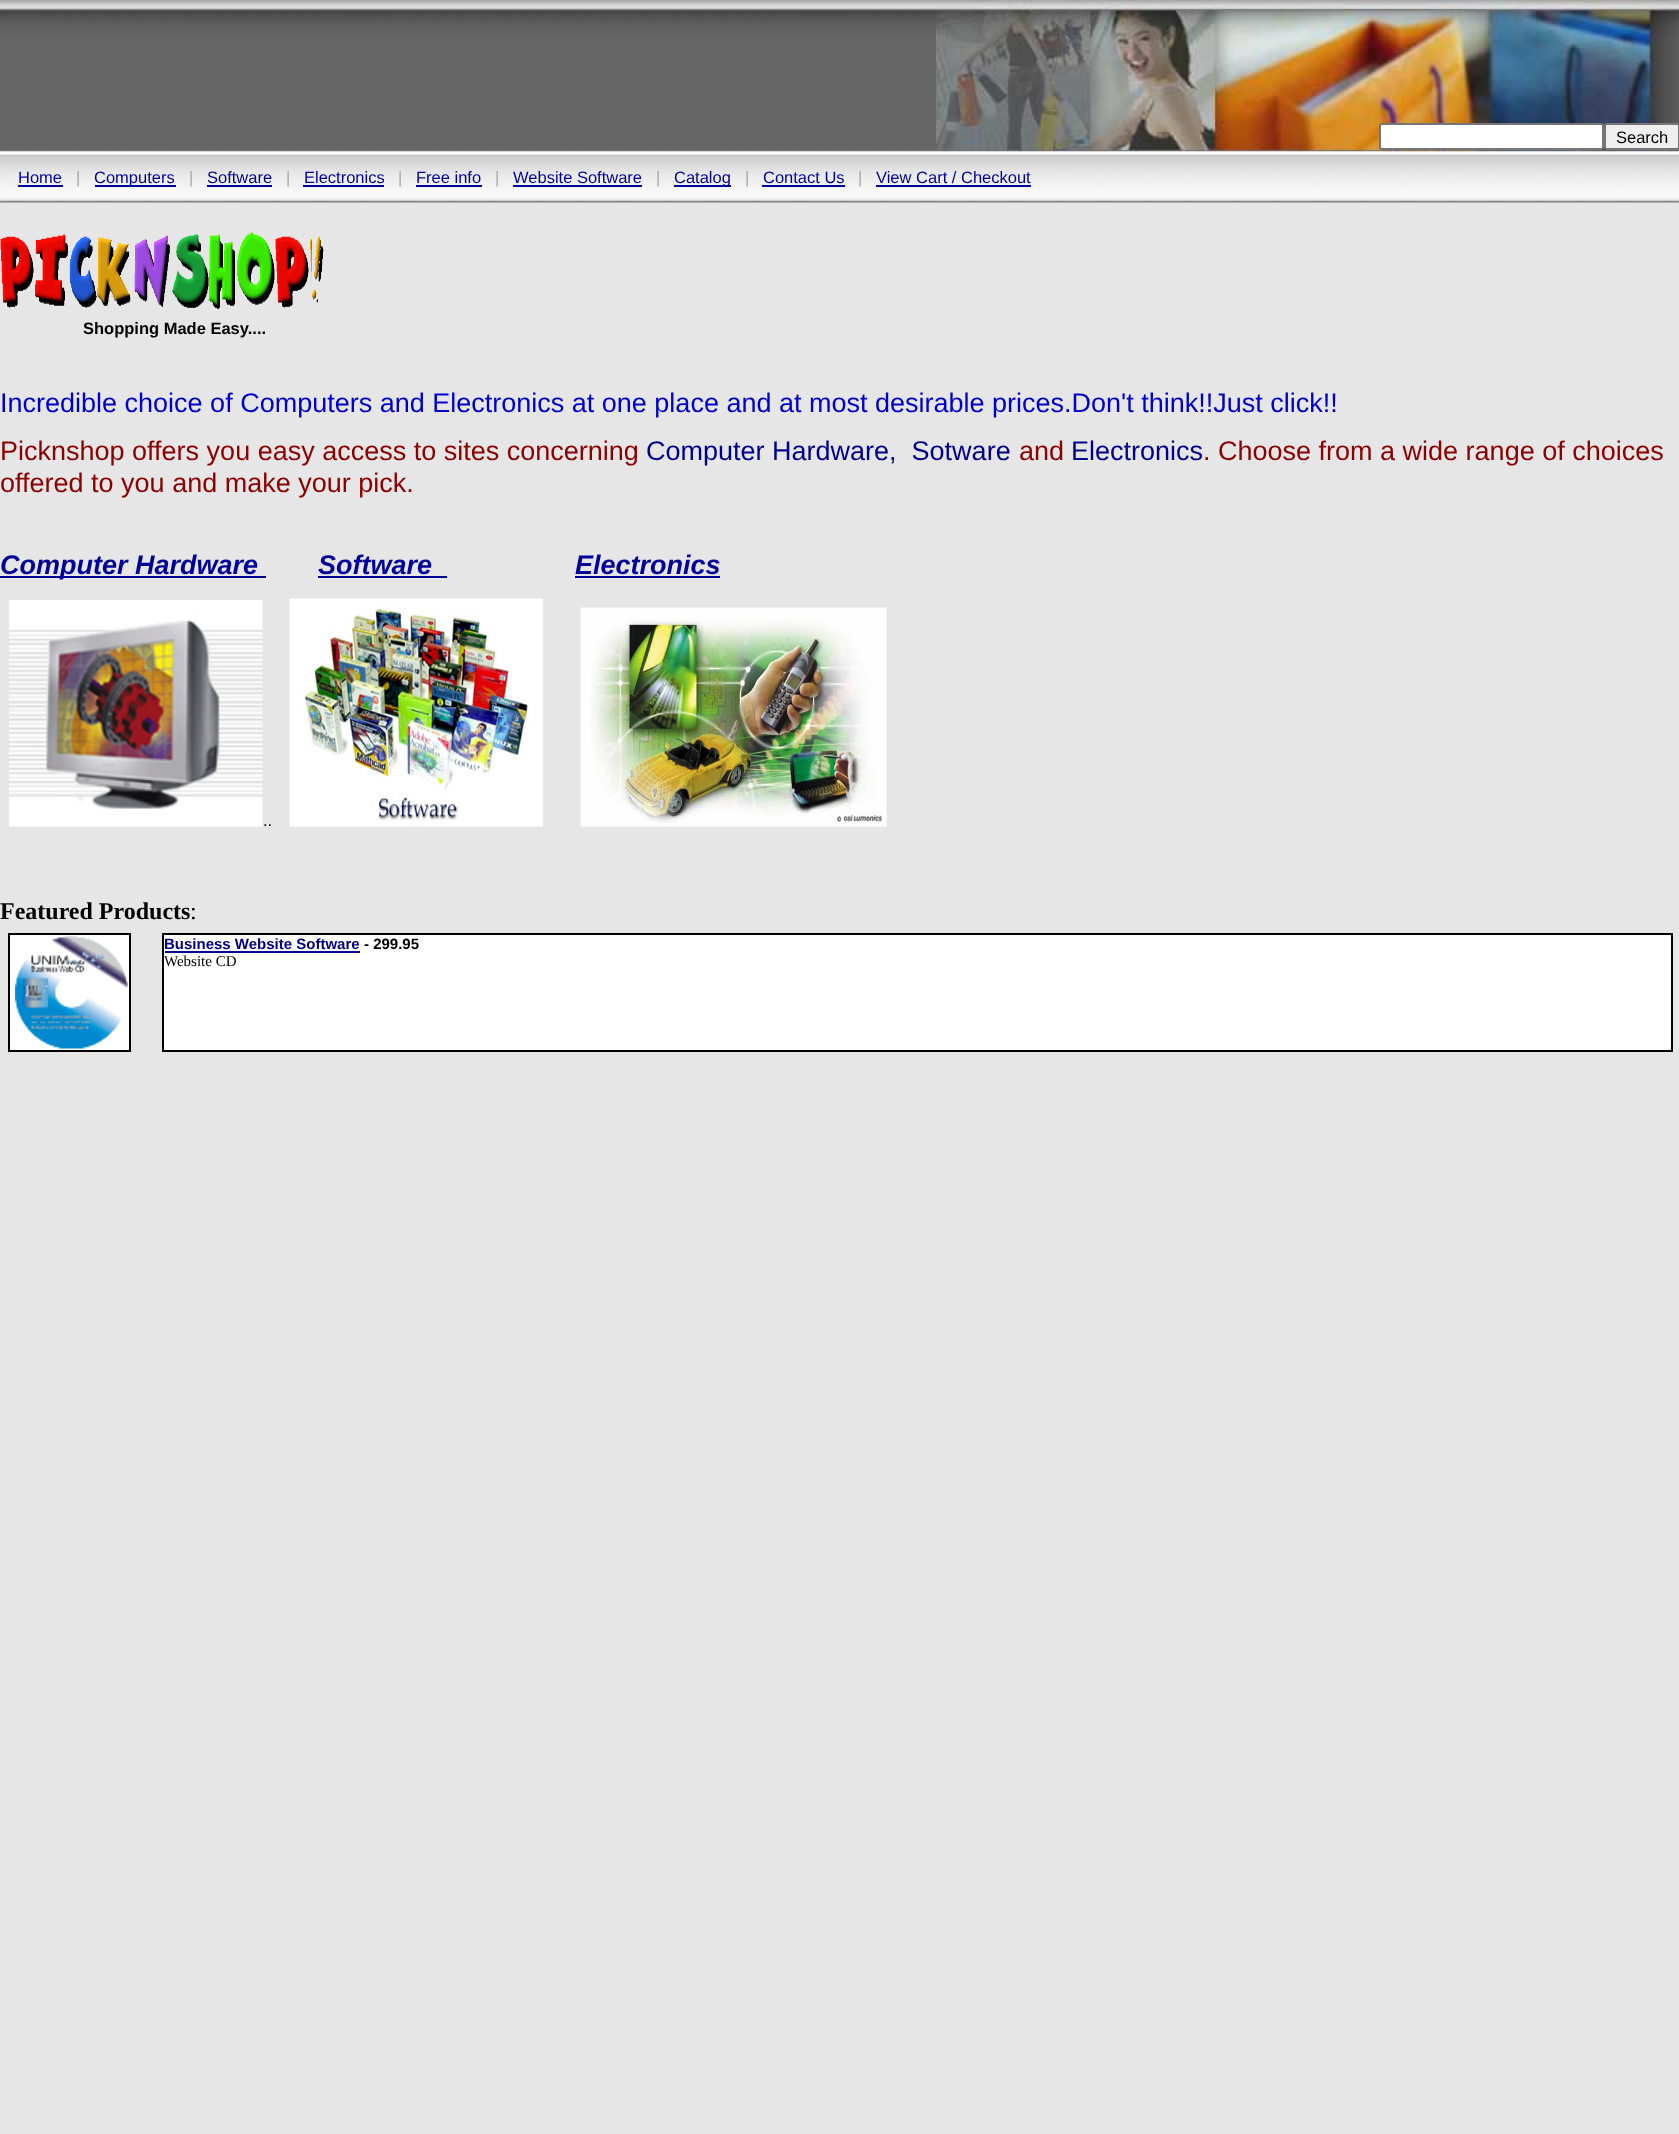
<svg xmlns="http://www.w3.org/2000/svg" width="1679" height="2134">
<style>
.a{font:16.5px Liberation Sans;fill:#000}
.b{font:16.5px Liberation Sans;fill:#009}
.c{font:16.5px Liberation Sans;fill:#aaa}
.d{font:bold 16.5px Liberation Sans;fill:#000}
.e{font:27px Liberation Sans;fill:#0000cd}
.f{font:27px Liberation Sans;fill:#8b0000}
.g{font:27px Liberation Sans;fill:#00008b}
.h{font:italic bold 27px Liberation Sans;fill:#009}
.i{font:bold 24px Liberation Serif;fill:#000}
.j{font:24px Liberation Serif;fill:#000}
.k{font:bold 15px Liberation Sans;fill:#000080}
.l{font:bold 15px Liberation Sans;fill:#000}
.m{font:15px Liberation Serif;fill:#000}
</style>
<rect width="100%" height="100%" fill="#e6e6e6"/>
<image href="1.png" x="0" y="0" width="936" height="152"/>
<image href="2.png" x="936" y="0" width="743" height="152"/>
<rect fill="#fff" stroke="#767676" stroke-width="2" x="1380" y="124" width="223" height="25" rx="2"/>
<rect fill="#efefef" stroke="#767676" stroke-width="2" x="1605" y="124" width="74" height="25" rx="2"/>
<image href="3.png" x="0" y="151" width="1679" height="52"/>
<path fill="#009" d="M18 185h45v2H18z"/>
<path fill="#009" d="M95 185h81v2H95z"/>
<path fill="#009" d="M207 185h65v2H207z"/>
<path fill="#009" d="M303 185h81v2H303z"/>
<path fill="#009" d="M416 185h66v2H416z"/>
<path fill="#009" d="M513 185h129v2H513z"/>
<path fill="#009" d="M674 185h57v2H674z"/>
<path fill="#009" d="M762 185h83v2H762z"/>
<path fill="#009" d="M876 185h155v2H876z"/>
<image href="4.png" x="0" y="232" width="324" height="77"/>
<path fill="#009" d="M0 576h266v2H0z"/>
<path fill="#009" d="M318 576h129v2H318z"/>
<path fill="#009" d="M575 576h145v2H575z"/>
<image href="5.png" x="9" y="600" width="254" height="227"/>
<image href="6.png" x="289" y="598" width="254" height="229"/>
<image href="7.png" x="580" y="607" width="307" height="220"/>
<path fill="#fff" stroke="#000" stroke-width="2" d="M9 934h121v117H9z"/>
<image href="8.png" x="15" y="936" width="113" height="113"/>
<path fill="#fff" stroke="#000" stroke-width="2" d="M163 934h1509v117H163z"/>
<path fill="#009" d="M165 951h195v2H165z"/>
<text class="a" x="1616" y="143">Search</text>
<text class="b" x="18" y="183">Home</text>
<text class="c" x="76" y="183">|</text>
<text class="b" x="94" y="183">Computers</text>
<text class="c" x="189" y="183">|</text>
<text class="b" x="207" y="183">Software</text>
<text class="c" x="286" y="183">|</text>
<text class="b" x="304" y="183">Electronics</text>
<text class="c" x="398" y="183">|</text>
<text class="b" x="416" y="183">Free info</text>
<text class="c" x="495" y="183">|</text>
<text class="b" x="513" y="183">Website Software</text>
<text class="c" x="656" y="183">|</text>
<text class="b" x="674" y="183">Catalog</text>
<text class="c" x="745" y="183">|</text>
<text class="b" x="763" y="183">Contact Us</text>
<text class="c" x="858" y="183">|</text>
<text class="b" x="876" y="183">View Cart / Checkout</text>
<text class="d" x="83" y="334">Shopping Made Easy....</text>
<text class="e" x="0" y="412">Incredible choice of Computers and Electronics at one place and at most desirable prices.Don't think!!Just click!!</text>
<text class="f" x="0" y="460">Picknshop offers you easy access to sites concerning</text>
<text class="g" xml:space="preserve" x="646" y="460">Computer Hardware,  Sotware</text>
<text class="f" x="1019" y="460">and</text>
<text class="g" x="1071" y="460">Electronics</text>
<text class="f" x="1203" y="460">. Choose from a wide range of choices</text>
<text class="f" x="0" y="492">offered to you and make your pick.</text>
<text class="h" x="0" y="574">Computer Hardware</text>
<text class="h" x="318" y="574">Software</text>
<text class="h" x="575" y="574">Electronics</text>
<text class="a" x="263" y="826">..</text>
<text class="i" x="0" y="919">Featured Products</text>
<text class="j" x="190" y="919">:</text>
<text class="k" x="164" y="949">Business Website Software</text>
<text class="l" x="364" y="949">- 299.95</text>
<text class="m" x="164" y="966">Website CD</text>
</svg>
